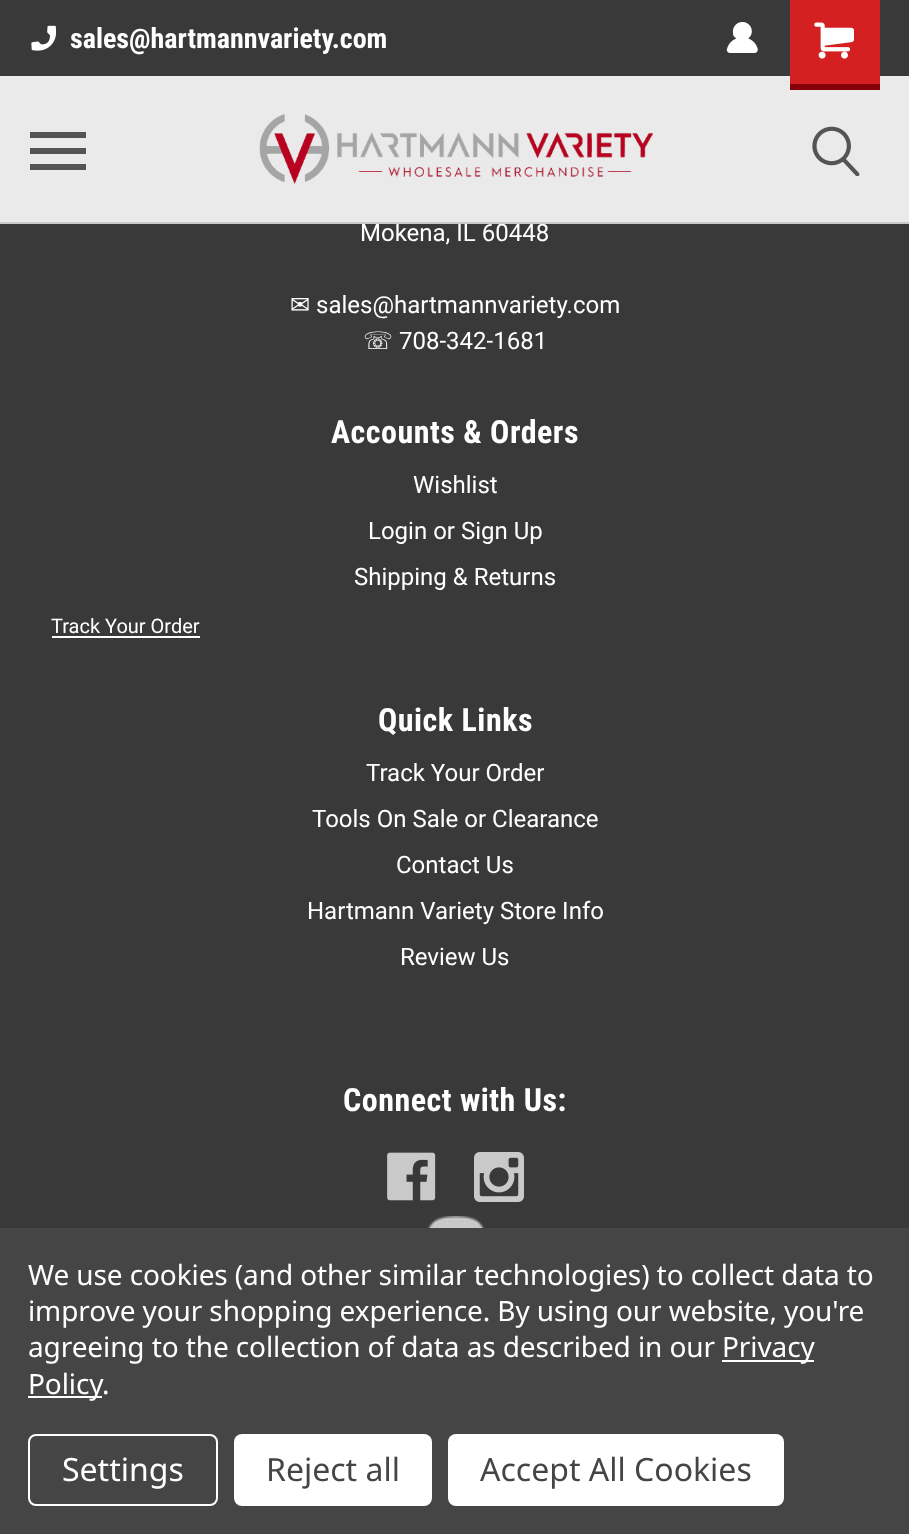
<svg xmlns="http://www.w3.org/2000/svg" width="909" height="1534">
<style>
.a{font:bold 28px Roboto Condensed;fill:#fff}
.b{font:24px Roboto;fill:#fff}
.c{font:24px DejaVu Sans;fill:#fff}
.d{font:bold 32px Roboto Condensed;letter-spacing:0.5px;fill:#fff}
.e{font:20px Roboto;fill:#fff}
.f{font:28px Noto Sans;letter-spacing:-0.1px;fill:#fff}
.g{font:32px Noto Sans;fill:#fff}
.h{font:32px Noto Sans;fill:#454545}
</style>
<rect width="100%" height="100%" fill="#393939"/>
<image href="1.png" x="31" y="25" width="25" height="26"/>
<image href="2.png" x="726" y="22" width="32" height="31"/>
<path fill="#eaeaea" d="M0 76h909v146H0z"/>
<path fill="#d42020" d="M790 0h90v84H790z"/>
<path fill="#860109" d="M790 84h90v6H790z"/>
<image href="3.png" x="814" y="22" width="40" height="37"/>
<path fill="#545454" d="M30 148h56v6H30z"/>
<path fill="#545454" d="M30 132h56v6H30z"/>
<path fill="#545454" d="M30 164h56v6H30z"/>
<image href="4.png" x="259" y="114" width="395" height="70"/>
<image href="5.png" x="812" y="126" width="48" height="50"/>
<path fill="#fff" d="M52 636h148v2H52z"/>
<image href="6.png" x="387" y="1152" width="49" height="49"/>
<image href="7.png" x="474" y="1152" width="50" height="50"/>
<image href="8.png" x="427" y="1216" width="58" height="12"/>
<path fill="#454545" d="M0 1228h909v306H0z"/>
<path fill="#fff" d="M722 1360h92v2H722z"/>
<path fill="#fff" d="M28 1396h74v2H28z"/>
<rect fill="none" stroke="#fff" stroke-width="2" x="29" y="1435" width="188" height="70" rx="7"/>
<rect fill="#fff" x="234" y="1434" width="198" height="72" rx="8"/>
<rect fill="#fff" x="448" y="1434" width="336" height="72" rx="8"/>
<text class="a" x="70" y="48">sales@hartmannvariety.com</text>
<text class="b" x="360" y="241">Mokena, IL 60448</text>
<path fill="#cac9c9" d="M0 222h909v2H0z"/>
<text class="c" x="290" y="313">✉</text>
<text class="b" x="316" y="313">sales@hartmannvariety.com</text>
<text class="c" x="363" y="349">☏</text>
<text class="b" x="399" y="349">708-342-1681</text>
<text class="d" x="331" y="443">Accounts &amp; Orders</text>
<text class="b" x="413" y="493">Wishlist</text>
<text class="b" x="368" y="539">Login or</text>
<text class="b" x="461" y="539">Sign Up</text>
<text class="b" x="354" y="585">Shipping &amp; Returns</text>
<text class="e" x="51" y="633">Track Your Order</text>
<text class="d" x="378" y="731">Quick Links</text>
<text class="b" x="366" y="781">Track Your Order</text>
<text class="b" x="312" y="827">Tools On Sale or Clearance</text>
<text class="b" x="396" y="873">Contact Us</text>
<text class="b" x="307" y="919">Hartmann Variety Store Info</text>
<text class="b" x="400" y="965">Review Us</text>
<text class="d" x="343" y="1111">Connect with Us:</text>
<text class="f" x="28" y="1285">We use cookies (and other similar technologies) to collect data to</text>
<text class="f" x="28" y="1321">improve your shopping experience. By using our website, you're</text>
<text class="f" x="28" y="1357">agreeing to the collection of data as described in our</text>
<text class="f" x="722" y="1357">Privacy</text>
<text class="f" x="28" y="1394">Policy</text>
<text class="f" x="102" y="1394">.</text>
<text class="g" x="62" y="1481">Settings</text>
<text class="h" x="266" y="1481">Reject all</text>
<text class="h" x="480" y="1481">Accept All Cookies</text>
</svg>
